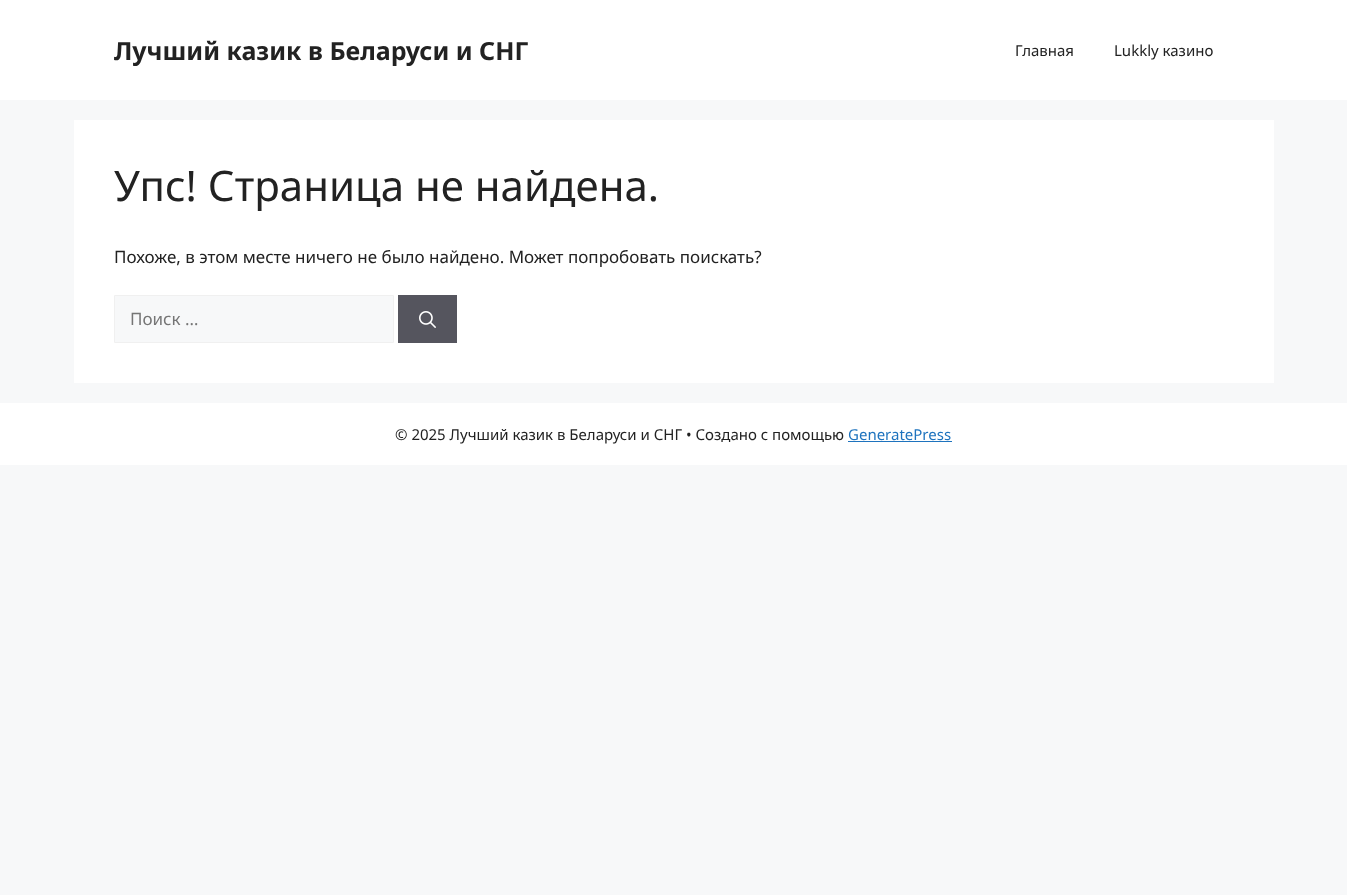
<svg xmlns="http://www.w3.org/2000/svg" width="1347" height="895">
<style>
.a{font:bold 25px Noto Sans;fill:#222}
.b{font:15px Noto Sans;fill:#222}
.c{font:42px Noto Sans;fill:#222}
.d{font:17px Noto Sans;fill:#222}
.e{font:17px Noto Sans;fill:#757575}
.f{font:15px Noto Sans;fill:#1e73be}
</style>
<rect width="100%" height="100%" fill="#f7f8f9"/>
<path fill="#fff" d="M0 0h1347v100H0z"/>
<path fill="#fff" d="M74 120h1200v263H74z"/>
<path fill="#f7f8f9" stroke="#f0f0f0" d="M114.5 295.5h279v47H114.5z"/>
<path fill="#55555e" d="M398 295h59v48H398z"/>
<image href="1.png" x="419" y="311" width="17" height="17"/>
<path fill="#fff" d="M0 403h1347v62H0z"/>
<path fill="#1e73be" d="M848 441h104v1H848z"/>
<text class="a" x="114" y="60">Лучший казик в Беларуси и СНГ</text>
<text class="b" x="1015" y="56">Главная</text>
<text class="b" x="1114" y="56">Lukkly казино</text>
<text class="c" x="114" y="201">Упс! Страница не найдена.</text>
<text class="d" x="114" y="263">Похоже, в этом месте ничего не было найдено. Может попробовать поискать?</text>
<text class="e" x="130" y="325">Поиск …</text>
<text class="b" x="395" y="440">© 2025 Лучший казик в Беларуси и СНГ • Создано с помощью</text>
<text class="f" x="848" y="440">GeneratePress</text>
</svg>
